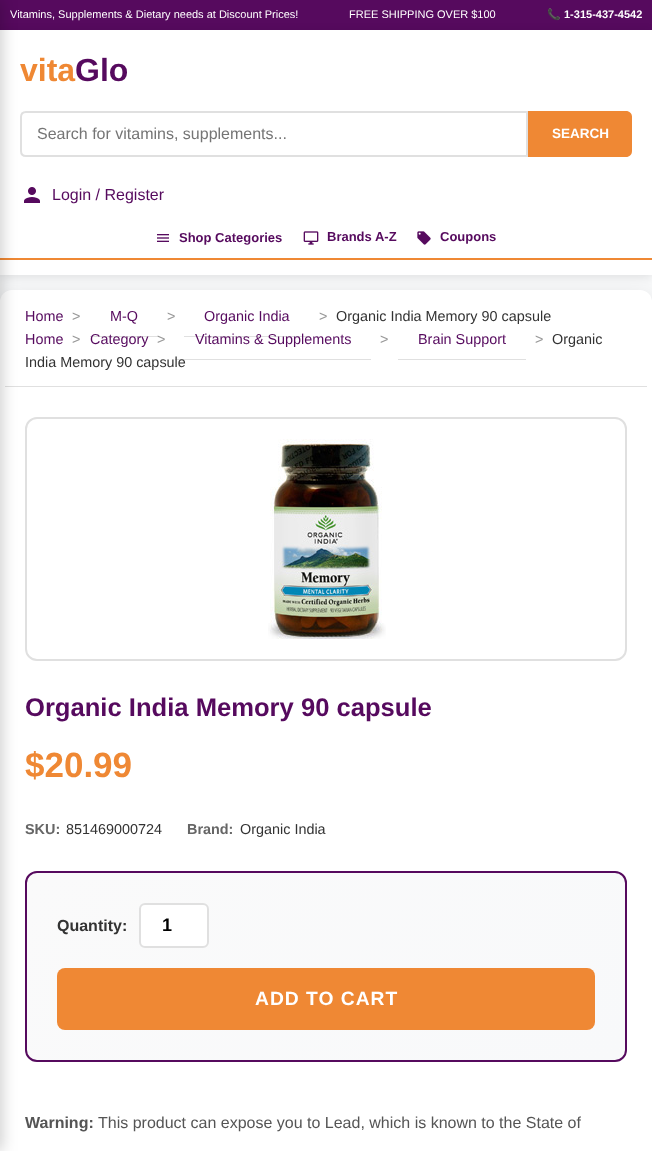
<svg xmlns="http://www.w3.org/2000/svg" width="652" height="1151">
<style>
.a{font:11px Liberation Sans;fill:#fff}
.b{font:bold 11px Noto Color Emoji;fill:#fff}
.c{font:bold 11px Liberation Sans;fill:#fff}
.d{font:bold 32px Liberation Sans;fill:#ef8834}
.e{font:bold 32px Liberation Sans;fill:#560a5e}
.f{font:16px Liberation Sans;fill:#757575}
.g{font:bold 13.5px Liberation Sans;fill:#fff}
.h{font:16px Liberation Sans;fill:#560a5e}
.i{font:bold 13px Liberation Sans;fill:#560a5e}
.j{font:14.4px Liberation Sans;fill:#560a5e}
.k{font:14.4px Liberation Sans;fill:#999}
.l{font:14.4px Liberation Sans;fill:#333}
.m{font:bold 25.6px Liberation Sans;fill:#560a5e}
.n{font:bold 35px Liberation Sans;fill:#ef8834}
.o{font:bold 14.4px Liberation Sans;fill:#666}
.p{font:bold 16px Liberation Sans;fill:#333}
.q{font:bold 18px Liberation Sans;fill:#000}
.r{font:bold 19.25px Liberation Sans;letter-spacing:1px;fill:#fff}
.s{font:bold 16px Liberation Sans;fill:#555}
.t{font:16px Liberation Sans;fill:#555}
</style>
<defs>
<clipPath id="clip1"><rect x="25" y="871" width="602" height="191" rx="12"/></clipPath>
<linearGradient id="g1" gradientUnits="userSpaceOnUse" x1="130" y1="770" x2="522" y2="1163"><stop offset="0" stop-color="#fafafa"/><stop offset="1" stop-color="#f8f9fa"/></linearGradient>
</defs>
<rect width="100%" height="100%" fill="#f8f9fa"/>
<path fill="#560a5e" d="M0 0h652v30H0z"/>
<path fill="#0000001a" filter="blur(5px)" d="M0 32h652v245H0z"/>
<path fill="#fff" d="M0 30h652v245H0z"/>
<path fill="none" stroke="#e0e0e0" stroke-width="2" d="M26 112h501v44h-501c-3 0-5-2-5-5v-34c0-3 2-5 5-5z"/>
<image href="1.png" x="24" y="187" width="16" height="16"/>
<path fill="#ef8834" d="M0 258h652v2H0z"/>
<rect fill="#0000001a" filter="blur(10px)" y="295" width="652" height="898" rx="12"/>
<rect fill="#fff" y="290" width="652" height="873" rx="12"/>
<path fill="#e0e0e0" d="M5 386h642v1H5z"/>
<rect fill="none" stroke="#e0e0e0" stroke-width="2" x="26" y="418" width="600" height="242" rx="11"/>
<g clip-path="url(#clip1)">
<path fill="url(#g1)" d="M27 873h598v187H27z"/>
</g>
<rect fill="none" stroke="#560a5e" stroke-width="2" x="26" y="872" width="600" height="189" rx="11"/>
<path fill="#00000033" filter="blur(7.5px)" d="M-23 0h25v1151H-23z"/>
<path fill="#ef8834" d="M528 111h98c3.5 0 6 2.5 6 6v34c0 3.5-2.5 6-6 6h-98z"/>
<image href="2.png" x="157" y="234" width="12" height="8"/>
<image href="3.png" x="303" y="231" width="16" height="14"/>
<image href="4.png" x="417" y="231" width="14" height="14"/>
<path fill="#e0e0e0" d="M90 336h68v1H90z"/>
<path fill="#e0e0e0" d="M184 336h126v1H184z"/>
<path fill="#e0e0e0" d="M175 359h196v1H175z"/>
<path fill="#e0e0e0" d="M398 359h128v1H398z"/>
<image href="5.png" x="268" y="439" width="118" height="200"/>
<rect fill="#fff" stroke="#e0e0e0" stroke-width="2" x="140" y="904" width="68" height="43" rx="5"/>
<rect fill="#ef8834" x="57" y="968" width="538" height="62" rx="8"/>
<text class="a" x="10" y="18">Vitamins, Supplements &amp; Dietary needs at Discount Prices!</text>
<text class="a" x="349" y="18">FREE SHIPPING OVER $100</text>
<text class="b" x="547" y="18">📞</text>
<text class="c" x="564" y="18">1-315-437-4542</text>
<text class="d" x="20" y="81">vita</text>
<text class="e" x="75" y="81">Glo</text>
<text class="f" x="37" y="139">Search for vitamins, supplements...</text>
<text class="g" x="552" y="138">SEARCH</text>
<text class="h" x="52" y="200">Login / Register</text>
<text class="i" x="179" y="242">Shop Categories</text>
<text class="i" x="327" y="241">Brands A-Z</text>
<text class="i" x="440" y="241">Coupons</text>
<text class="j" x="25" y="321">Home</text>
<text class="k" x="72" y="321">&gt;</text>
<text class="j" x="110" y="321">M-Q</text>
<text class="k" x="167" y="321">&gt;</text>
<text class="j" x="204" y="321">Organic India</text>
<text class="k" x="319" y="321">&gt;</text>
<text class="l" x="336" y="321">Organic India Memory 90 capsule</text>
<text class="j" x="25" y="344">Home</text>
<text class="k" x="72" y="344">&gt;</text>
<text class="j" x="90" y="344">Category</text>
<text class="k" x="157" y="344">&gt;</text>
<text class="j" x="195" y="344">Vitamins &amp; Supplements</text>
<text class="k" x="380" y="344">&gt;</text>
<text class="j" x="418" y="344">Brain Support</text>
<text class="k" x="535" y="344">&gt;</text>
<text class="l" x="552" y="344">Organic</text>
<text class="l" x="25" y="367">India Memory 90 capsule</text>
<text class="m" x="25" y="716">Organic India Memory 90 capsule</text>
<text class="n" x="25" y="777">$20.99</text>
<text class="o" x="25" y="834">SKU:</text>
<text class="l" x="66" y="834">851469000724</text>
<text class="o" x="187" y="834">Brand:</text>
<text class="l" x="240" y="834">Organic India</text>
<text class="p" x="57" y="931">Quantity:</text>
<text class="q" x="162" y="931">1</text>
<text class="r" x="255" y="1005">ADD TO CART</text>
<text class="s" x="25" y="1128">Warning:</text>
<text class="t" x="98" y="1128">This product can expose you to Lead, which is known to the State of</text>
</svg>
